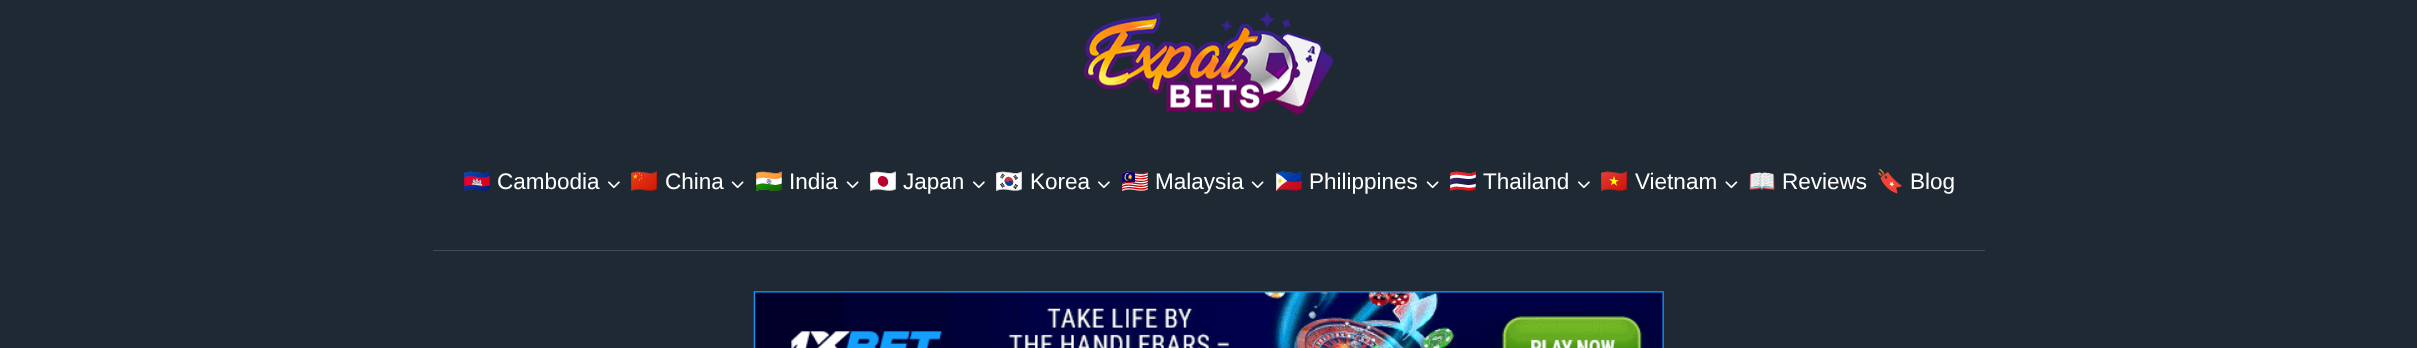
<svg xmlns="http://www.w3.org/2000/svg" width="2417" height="348">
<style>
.a{font:22.5px Noto Color Emoji;fill:#fff}
.b{font:22.5px Liberation Sans;fill:#fff}
</style>
<rect width="100%" height="100%" fill="#1f2933"/>
<image href="1.png" x="1083" y="11" width="250" height="104"/>
<path fill="#3e4c59" d="M433 250h1552v1H433z"/>
<image href="2.png" x="608" y="181" width="12" height="8"/>
<image href="3.png" x="731" y="181" width="13" height="8"/>
<image href="3.png" x="846" y="181" width="13" height="8"/>
<image href="2.png" x="973" y="181" width="12" height="8"/>
<image href="2.png" x="1098" y="181" width="12" height="8"/>
<image href="3.png" x="1251" y="181" width="13" height="8"/>
<image href="3.png" x="1426" y="181" width="13" height="8"/>
<image href="2.png" x="1578" y="181" width="12" height="8"/>
<image href="4.png" x="1725" y="181" width="13" height="8"/>
<image href="5.png" x="753" y="291" width="911" height="57"/>
<text class="a" x="463" y="189">🇰🇭</text>
<text class="b" x="497" y="189">Cambodia</text>
<text class="a" x="630" y="189">🇨🇳</text>
<text class="b" x="665" y="189">China</text>
<text class="a" x="755" y="189">🇮🇳</text>
<text class="b" x="789" y="189">India</text>
<text class="a" x="869" y="189">🇯🇵</text>
<text class="b" x="903" y="189">Japan</text>
<text class="a" x="995" y="189">🇰🇷</text>
<text class="b" x="1030" y="189">Korea</text>
<text class="a" x="1121" y="189">🇲🇾</text>
<text class="b" x="1155" y="189">Malaysia</text>
<text class="a" x="1275" y="189">🇵🇭</text>
<text class="b" x="1309" y="189">Philippines</text>
<text class="a" x="1449" y="189">🇹🇭</text>
<text class="b" x="1483" y="189">Thailand</text>
<text class="a" x="1600" y="189">🇻🇳</text>
<text class="b" x="1635" y="189">Vietnam</text>
<text class="a" x="1748" y="189">📖</text>
<text class="b" x="1782" y="189">Reviews</text>
<text class="a" x="1876" y="189">🔖</text>
<text class="b" x="1910" y="189">Blog</text>
</svg>
